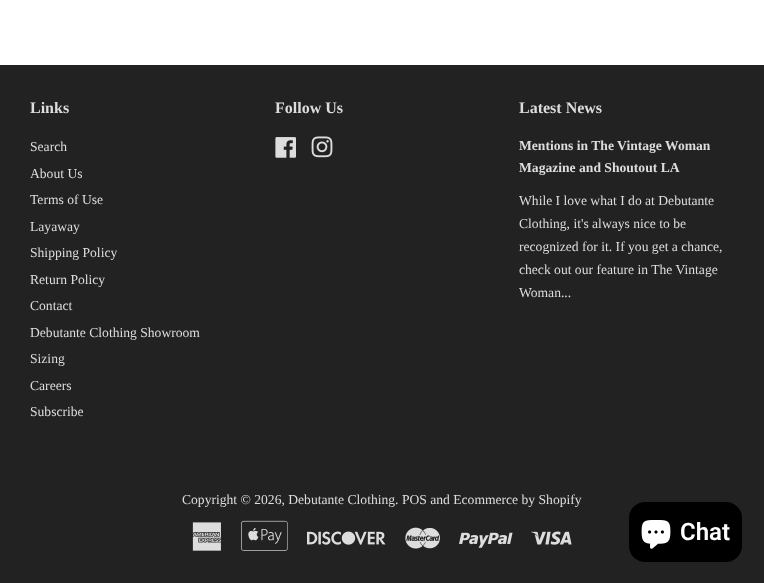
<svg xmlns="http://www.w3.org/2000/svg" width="764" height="583">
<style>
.a{font:bold 16px Liberation Serif;fill:#ddd}
.b{font:13.6px Liberation Serif;fill:#ddd}
.c{font:bold 13.6px Liberation Serif;fill:#ddd}
.d{font:600 24px Roboto;fill:#fff}
</style>
<rect width="100%" height="100%" fill="#fff"/>
<path fill="#222" d="M0 65h764v518H0z"/>
<image href="1.png" x="275" y="137" width="21" height="21"/>
<image href="2.png" x="311" y="136" width="22" height="22"/>
<image href="3.png" x="192" y="522" width="30" height="29"/>
<image href="4.png" x="241" y="520" width="47" height="31"/>
<image href="5.png" x="307" y="531" width="79" height="14"/>
<image href="6.png" x="405" y="527" width="35" height="22"/>
<image href="7.png" x="459" y="532" width="54" height="16"/>
<image href="8.png" x="531" y="531" width="41" height="14"/>
<rect fill="#000" x="629" y="502" width="113" height="60" rx="16"/>
<image href="9.png" x="641" y="520" width="30" height="29"/>
<text class="a" x="30" y="113">Links</text>
<text class="b" x="30" y="151">Search</text>
<text class="b" x="30" y="178">About Us</text>
<text class="b" x="30" y="204">Terms of Use</text>
<text class="b" x="30" y="231">Layaway</text>
<text class="b" x="30" y="257">Shipping Policy</text>
<text class="b" x="30" y="284">Return Policy</text>
<text class="b" x="30" y="310">Contact</text>
<text class="b" x="30" y="337">Debutante Clothing Showroom</text>
<text class="b" x="30" y="363">Sizing</text>
<text class="b" x="30" y="390">Careers</text>
<text class="b" x="30" y="416">Subscribe</text>
<text class="a" x="275" y="113">Follow Us</text>
<text class="a" x="519" y="113">Latest News</text>
<text class="c" x="519" y="150">Mentions in The Vintage Woman</text>
<text class="c" x="519" y="172">Magazine and Shoutout LA</text>
<text class="b" x="519" y="205">While I love what I do at Debutante</text>
<text class="b" x="519" y="228">Clothing, it's always nice to be</text>
<text class="b" x="519" y="251">recognized for it. If you get a chance,</text>
<text class="b" x="519" y="274">check out our feature in The Vintage</text>
<text class="b" x="519" y="297">Woman...</text>
<text class="b" x="182" y="504">Copyright © 2026, Debutante Clothing. POS and Ecommerce by Shopify</text>
<text class="d" x="680" y="540">Chat</text>
</svg>
